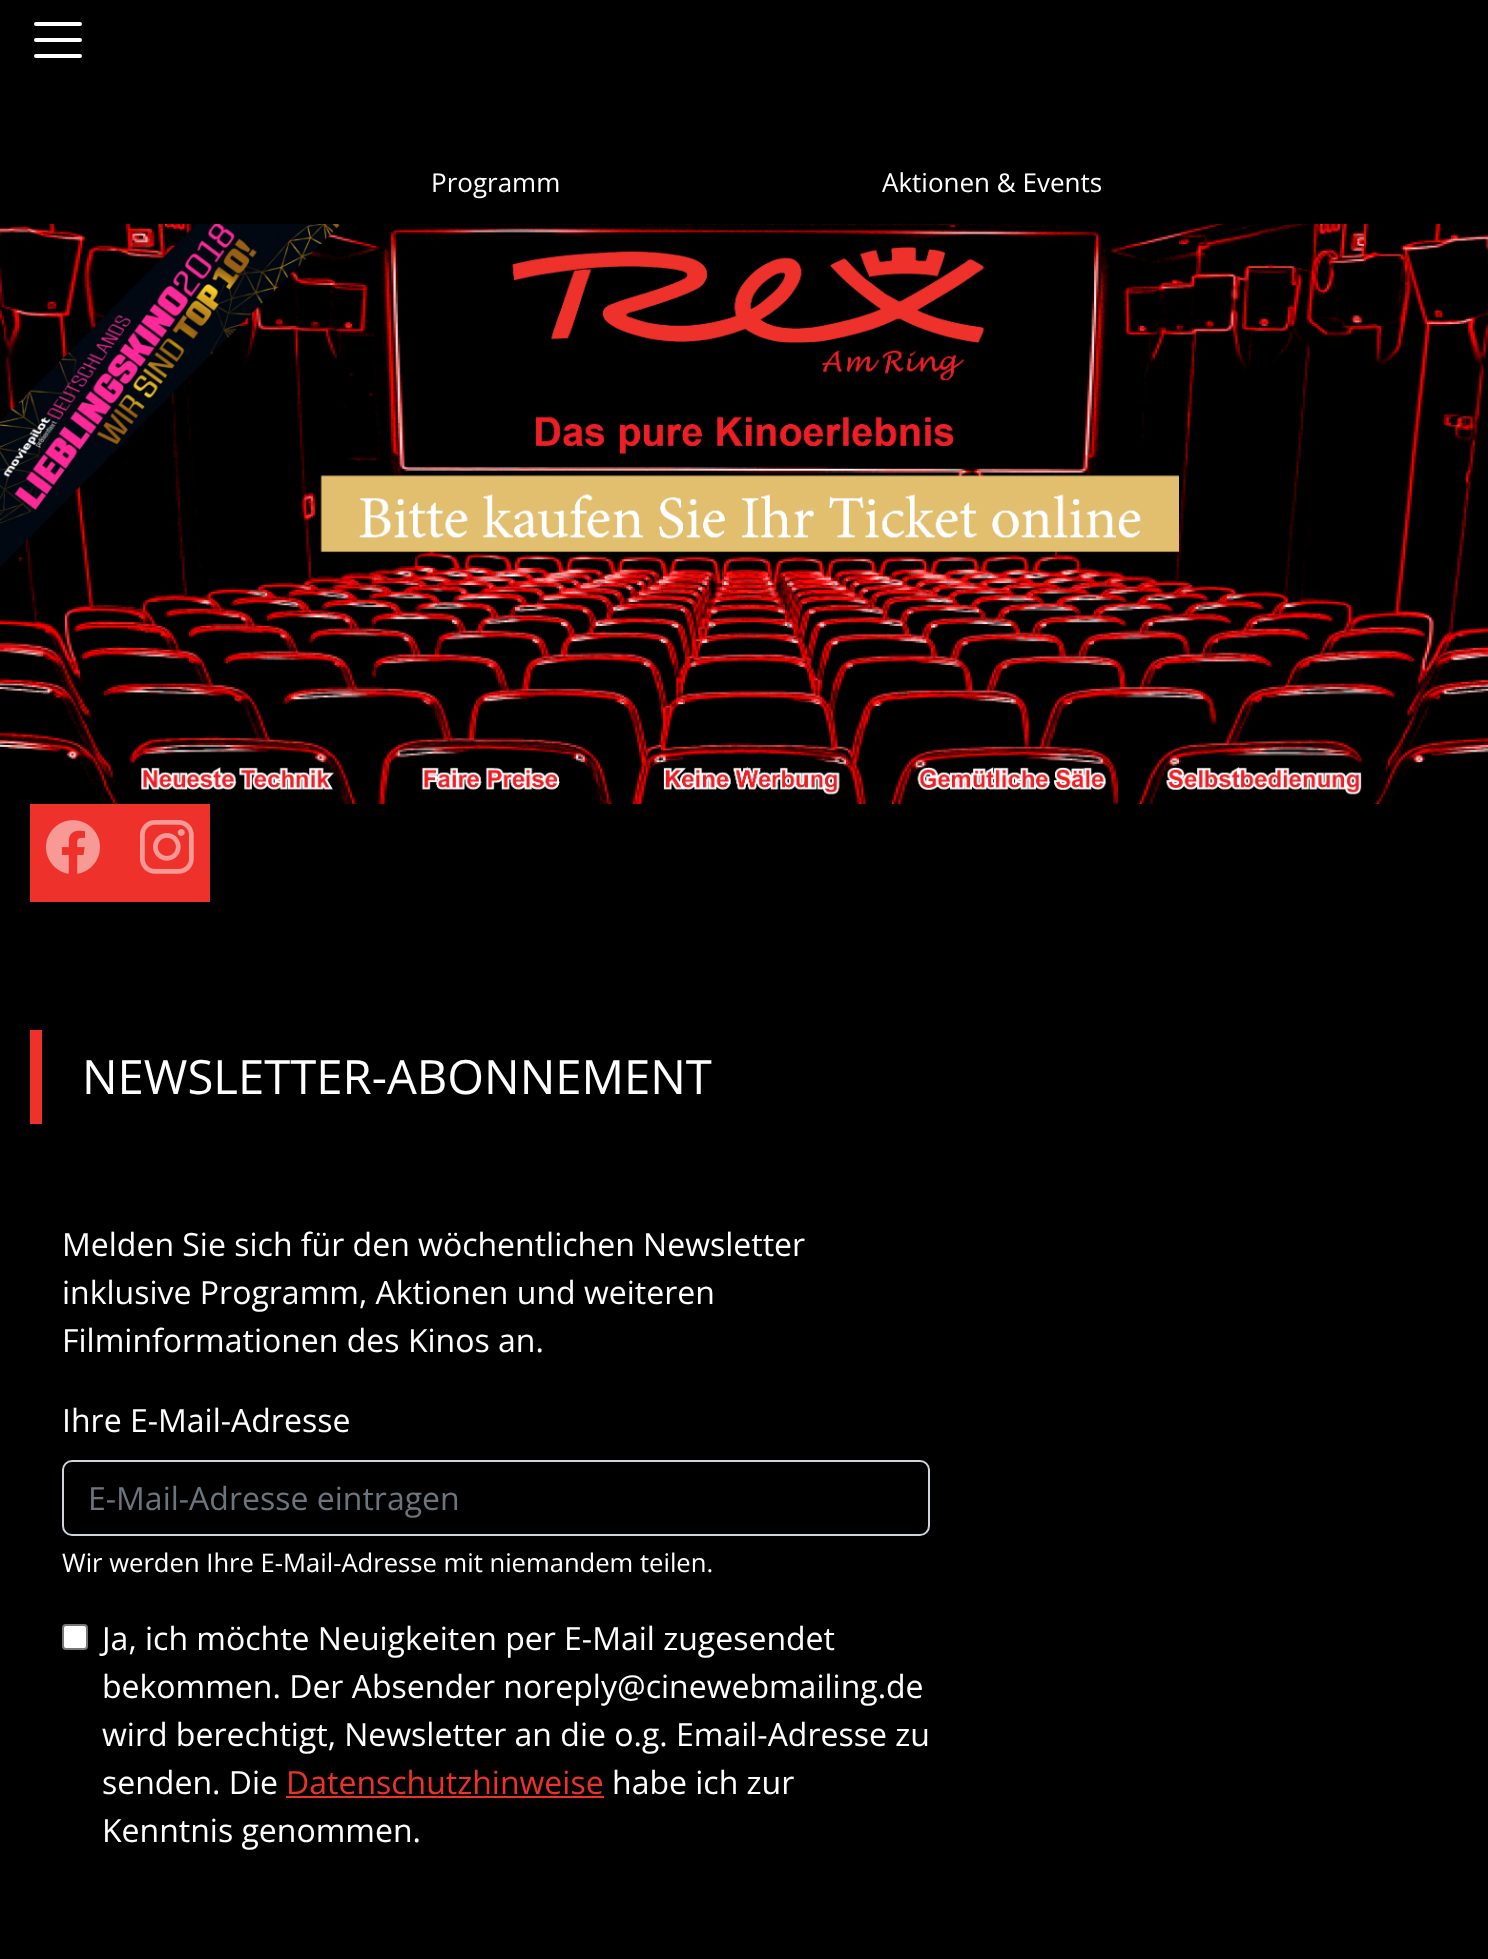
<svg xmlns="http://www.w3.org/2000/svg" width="1488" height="1959">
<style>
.a{font:26px Open Sans;fill:#fff}
.b{font:47.25px Open Sans;fill:#fff}
.c{font:32px Open Sans;fill:#fff}
.d{font:32px Open Sans;fill:#6c757d}
.e{font:25.6px Open Sans;fill:#fff}
.f{font:32px Open Sans;fill:#ee322b}
</style>
<rect width="100%" height="100%" fill="#000"/>
<path fill="none" stroke="#fff" stroke-width="4" stroke-linecap="round" d="M36 24h44m-44 16h44m-44 16h44"/>
<image href="1.png" x="0" y="224" width="1488" height="580"/>
<path fill="#ee322b" d="M30 804h180v98H30z"/>
<image href="2.png" x="46" y="820" width="54" height="54"/>
<image href="3.png" x="140" y="820" width="54" height="54"/>
<path fill="#ee322b" d="M30 1030h12v94H30z"/>
<rect fill="none" stroke="#ced4da" stroke-width="2" x="63" y="1461" width="866" height="74" rx="9"/>
<rect fill="#fff" stroke="#767676" stroke-width="2" x="63" y="1625" width="24" height="24" rx="3"/>
<path fill="#ee322b" d="M286 1796h318v2H286z"/>
<text class="a" x="431" y="192">Programm</text>
<text class="a" x="882" y="192">Aktionen &amp; Events</text>
<text class="b" x="82" y="1094">NEWSLETTER-ABONNEMENT</text>
<text class="c" x="62" y="1256">Melden Sie sich für den wöchentlichen Newsletter</text>
<text class="c" x="62" y="1304">inklusive Programm, Aktionen und weiteren</text>
<text class="c" x="62" y="1352">Filminformationen des Kinos an.</text>
<text class="c" x="62" y="1432">Ihre E-Mail-Adresse</text>
<text class="d" x="88" y="1510">E-Mail-Adresse eintragen</text>
<text class="e" x="62" y="1572">Wir werden Ihre E-Mail-Adresse mit niemandem teilen.</text>
<text class="c" x="102" y="1650">Ja, ich möchte Neuigkeiten per E-Mail zugesendet</text>
<text class="c" x="102" y="1698">bekommen. Der Absender noreply@cinewebmailing.de</text>
<text class="c" x="102" y="1746">wird berechtigt, Newsletter an die o.g. Email-Adresse zu</text>
<text class="c" x="102" y="1794">senden. Die</text>
<text class="f" x="286" y="1794">Datenschutzhinweise</text>
<text class="c" x="612" y="1794">habe ich zur</text>
<text class="c" x="102" y="1842">Kenntnis genommen.</text>
</svg>
